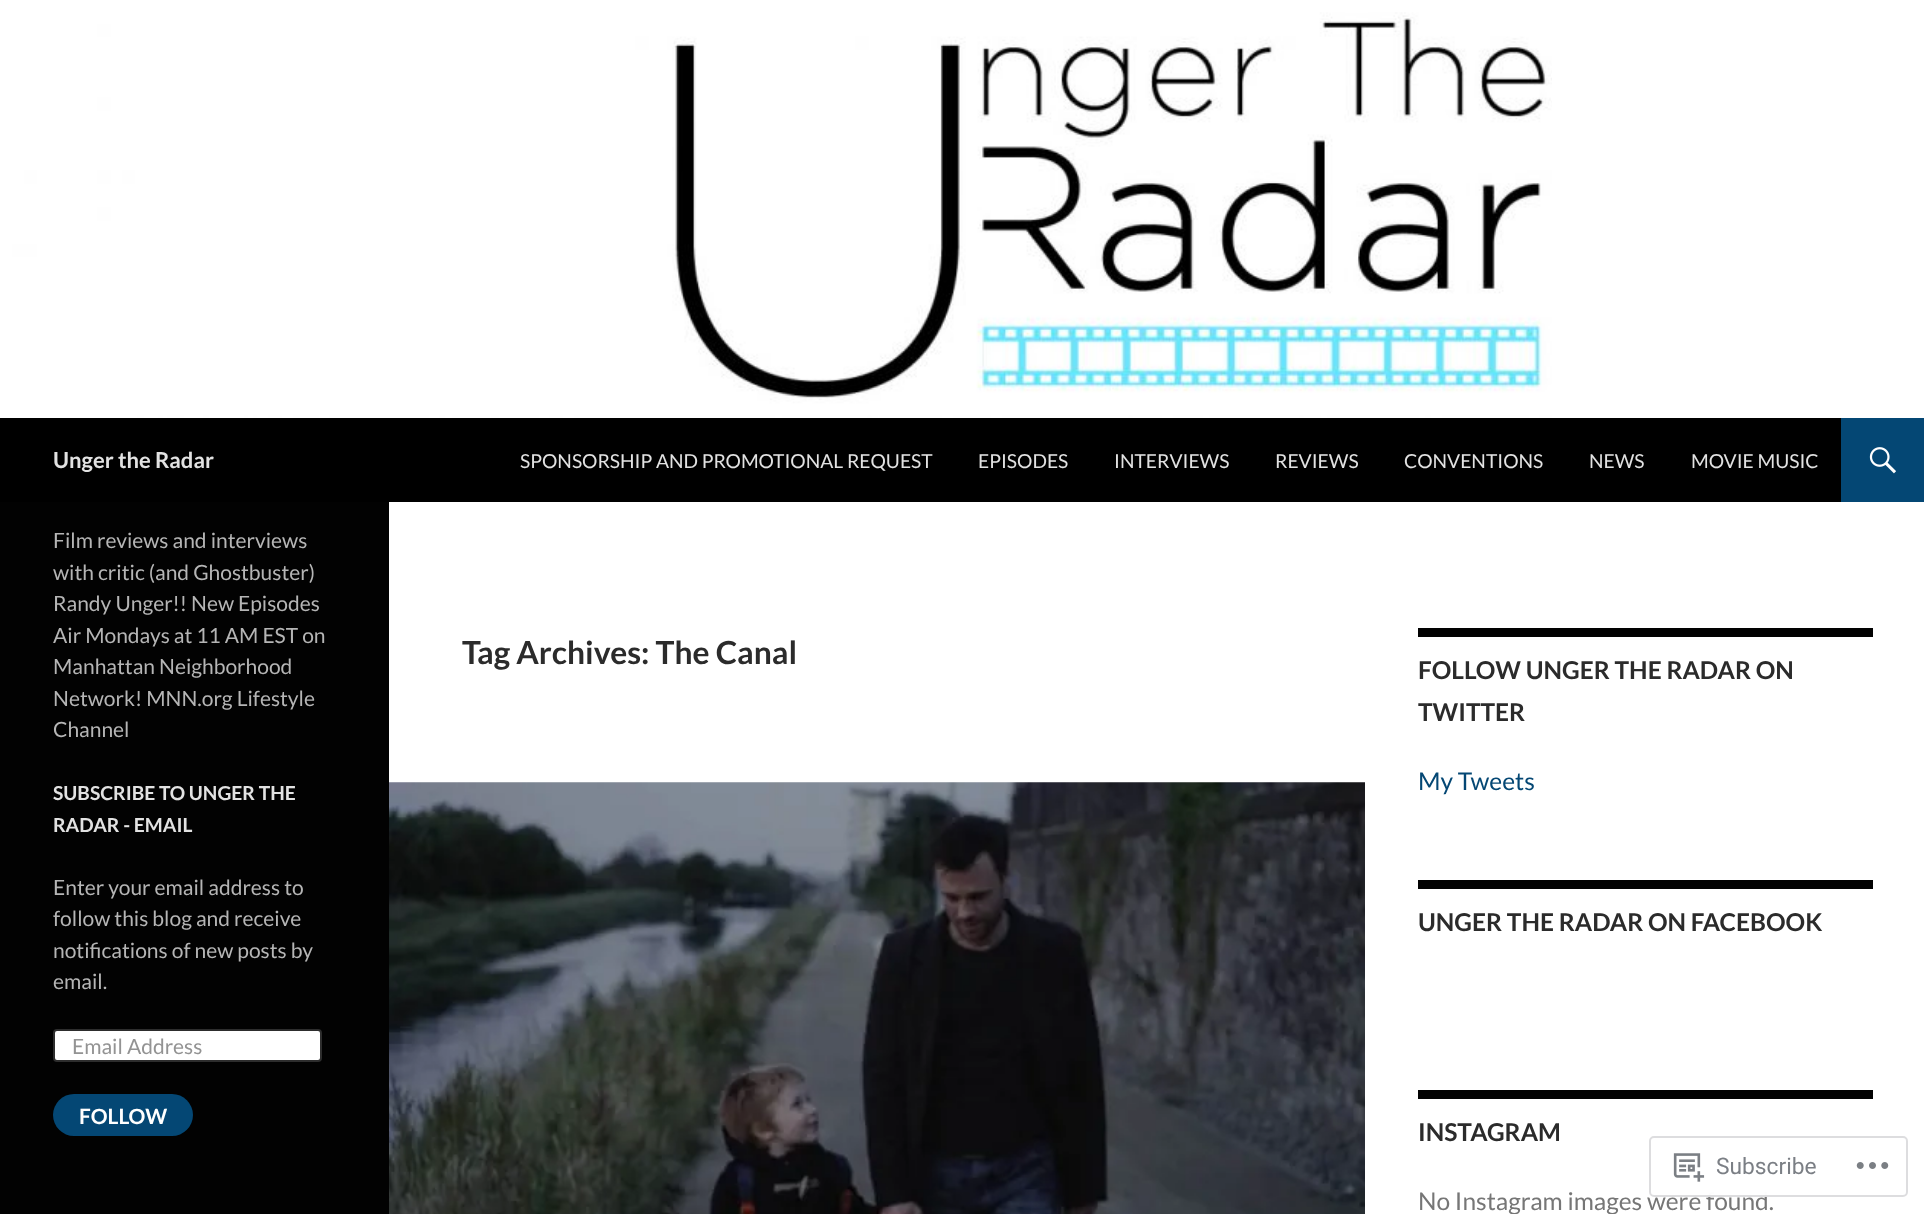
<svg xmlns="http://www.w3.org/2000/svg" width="1924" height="1214">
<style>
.a{font:bold 22px Lato;fill:#e2e2e2}
.b{font:19.25px Lato;fill:#e2e2e2}
.c{font:21px Lato;fill:#b5b5b5}
.d{font:bold 19.25px Lato;fill:#e2e2e2}
.e{font:21px Lato;fill:#939393}
.f{font:bold 21px Lato;fill:#fff}
.g{font:bold 31.8px Lato;fill:#2b2b2b}
.h{font:bold 24.5px Lato;fill:#2b2b2b}
.i{font:24.5px Lato;fill:#044774}
.j{font:24.5px Lato;fill:#767676}
.k{font:22.75px Roboto;fill:#7b7f85}
</style>
<rect width="100%" height="100%" fill="#fff"/>
<image href="1.png" x="0" y="0" width="1552" height="418"/>
<path fill="#000" d="M0 418h1841v84H0z"/>
<path fill="#044774" d="M1841 418h83v84H1841z"/>
<image href="2.png" x="1869" y="447" width="27" height="27"/>
<path fill="#020202" d="M0 502h389v712H0z"/>
<rect fill="#fff" stroke="#2d2d2d" stroke-width="2" x="54" y="1030" width="267" height="31" rx="3"/>
<rect fill="#044774" x="53" y="1094" width="140" height="42" rx="21"/>
<image href="3.png" x="389" y="782" width="976" height="1"/>
<image href="4.png" x="389" y="782" width="976" height="432"/>
<path fill="#020202" d="M1418 628h455v9H1418z"/>
<path fill="#020202" d="M1418 880h455v9H1418z"/>
<path fill="#020202" d="M1418 1090h455v9H1418z"/>
<text class="a" x="53" y="468">Unger the Radar</text>
<text class="b" x="520" y="468">SPONSORSHIP AND PROMOTIONAL REQUEST</text>
<text class="b" x="978" y="468">EPISODES</text>
<text class="b" x="1114" y="468">INTERVIEWS</text>
<text class="b" x="1275" y="468">REVIEWS</text>
<text class="b" x="1404" y="468">CONVENTIONS</text>
<text class="b" x="1589" y="468">NEWS</text>
<text class="b" x="1691" y="468">MOVIE MUSIC</text>
<text class="c" x="53" y="548">Film reviews and interviews</text>
<text class="c" x="53" y="580">with critic (and Ghostbuster)</text>
<text class="c" x="53" y="611">Randy Unger!! New Episodes</text>
<text class="c" x="53" y="643">Air Mondays at 11 AM EST on</text>
<text class="c" x="53" y="674">Manhattan Neighborhood</text>
<text class="c" x="53" y="706">Network! MNN.org Lifestyle</text>
<text class="c" x="53" y="737">Channel</text>
<text class="d" x="53" y="800">SUBSCRIBE TO UNGER THE</text>
<text class="d" x="53" y="832">RADAR - EMAIL</text>
<text class="c" x="53" y="895">Enter your email address to</text>
<text class="c" x="53" y="926">follow this blog and receive</text>
<text class="c" x="53" y="958">notifications of new posts by</text>
<text class="c" x="53" y="989">email.</text>
<text class="e" x="72" y="1054">Email Address</text>
<text class="f" x="79" y="1124">FOLLOW</text>
<text class="g" x="462" y="664">Tag Archives: The Canal</text>
<text class="h" x="1418" y="679">FOLLOW UNGER THE RADAR ON</text>
<text class="h" x="1418" y="721">TWITTER</text>
<text class="i" x="1418" y="790">My Tweets</text>
<text class="h" x="1418" y="931">UNGER THE RADAR ON FACEBOOK</text>
<text class="h" x="1418" y="1141">INSTAGRAM</text>
<text class="j" x="1418" y="1210">No Instagram images were found.</text>
<rect fill="#fffffffa" x="1649" y="1136" width="259" height="61" rx="5"/>
<rect fill="none" stroke="#dcdcdefa" stroke-width="2" x="1650" y="1137" width="257" height="59" rx="4"/>
<image href="5.png" x="1673" y="1153" width="32" height="29"/>
<text class="k" x="1716" y="1174">Subscribe</text>
<image href="6.png" x="1856" y="1162" width="33" height="7"/>
</svg>
